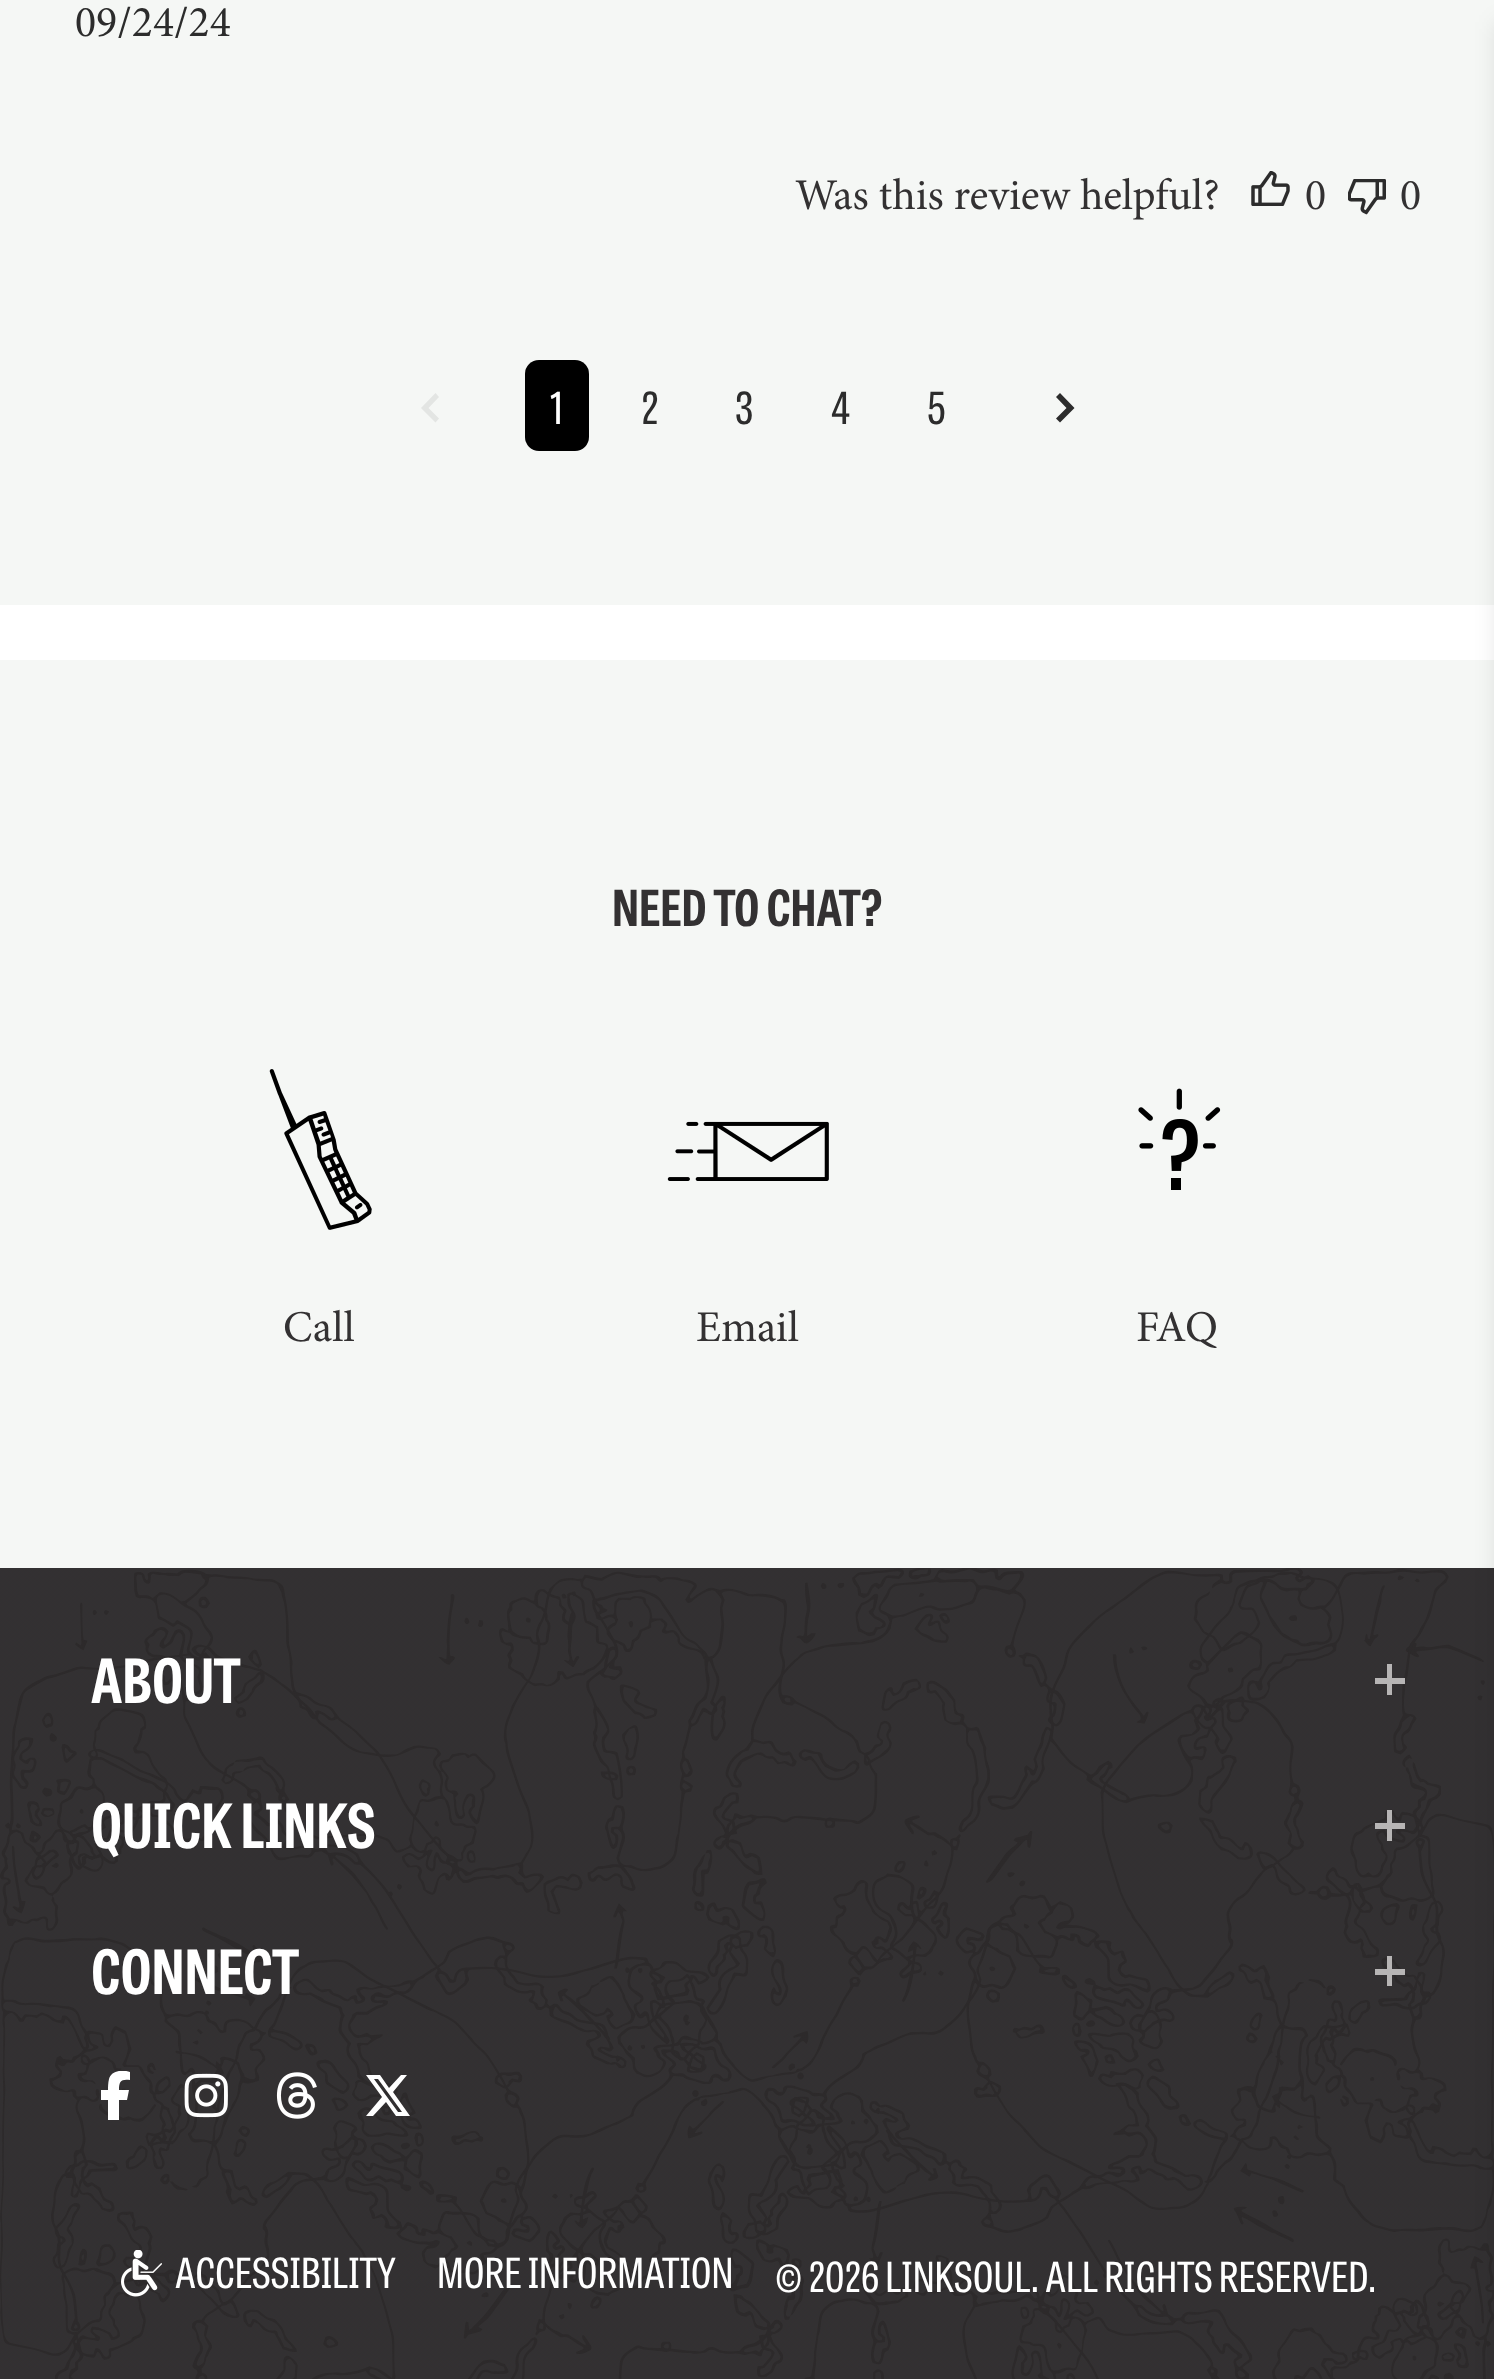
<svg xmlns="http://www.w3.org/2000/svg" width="1494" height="2379">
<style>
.a{font:44px Minion;fill:#2c2c2c}
.b{font:44px Minion;fill:#333132}
.c{font:44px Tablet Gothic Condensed;fill:#fff}
.d{font:44px Tablet Gothic Condensed;fill:#2c2c2c}
.e{font:bold 49.5px Tablet Gothic Condensed;fill:#333132}
.f{font:bold 60.5px Tablet Gothic Condensed;fill:#fff}
.g{font:41.25px Tablet Gothic Condensed;fill:#fff}
</style>
<defs>
<clipPath id="clip1"><path d="M91 2071h49v49H91z"/></clipPath>
</defs>
<rect width="100%" height="100%" fill="#fff"/>
<path fill="#f5f7f5" d="M0 0h1494v605H0z"/>
<image href="1.png" x="1251" y="171" width="39" height="35"/>
<image href="2.png" x="1348" y="179" width="38" height="36"/>
<path fill="#e3e5e3" fill-rule="evenodd" d="M439 418.5l-10.5-10.5l10.5-11l-3.5-4l-14.5 15l14.5 14.5z"/>
<rect fill="#000" x="525" y="360" width="64" height="91" rx="14"/>
<path fill="#2c2c2c" fill-rule="evenodd" d="M1056 418.5l10.5-10.5l-10.5-11l4-4l14.5 15l-14.5 14.5z"/>
<path fill="#f5f7f5" d="M0 660h1494v908H0z"/>
<image href="3.png" x="269" y="1069" width="103" height="161"/>
<image href="4.png" x="667" y="1121" width="162" height="60"/>
<image href="5.png" x="1138" y="1088" width="83" height="102"/>
<path fill="#333132" d="M0 1568h1494v811H0z"/>
<image href="6.png" x="0" y="1568" width="1494" height="811"/>
<path fill="#0a0a0a1a" filter="blur(11px)" d="M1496 22h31v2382H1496z"/>
<path fill="#b7b5b5" d="M1375 1678h30v6H1375z"/>
<path fill="#b7b5b5" d="M1387 1664h5v31H1387z"/>
<path fill="#b7b5b5" d="M1375 1823h30v6H1375z"/>
<path fill="#b7b5b5" d="M1387 1810h5v31H1387z"/>
<path fill="#b7b5b5" d="M1375 1969h30v6H1375z"/>
<path fill="#b7b5b5" d="M1387 1956h5v30H1387z"/>
<g clip-path="url(#clip1)">
<path fill="#fff" d="M108 2100v20h11v-20h8l2-10h-10c0-9 2-11 11-10v-8c-8-3-19-1-21 7c-1 4-1 8-1 11h-7v10z"/>
</g>
<image href="7.png" x="184" y="2073" width="44" height="45"/>
<image href="8.png" x="276" y="2072" width="41" height="47"/>
<path fill="#fff" d="M401 2075h6l-14 17l17 24h-14l-10-14l-13 14h-7l16-19l-16-22h14l9 13zm-3 37h4l-24-33h-4z"/>
<image href="9.png" x="121" y="2250" width="41" height="47"/>
<text class="a" x="75" y="36">09/24/24</text>
<text class="b" x="795" y="209">Was this review helpful?</text>
<text class="b" x="1305" y="209">0</text>
<text class="b" x="1400" y="209">0</text>
<text class="c" x="550" y="424">1</text>
<text class="d" x="641" y="424">2</text>
<text class="d" x="735" y="424">3</text>
<text class="d" x="831" y="424">4</text>
<text class="d" x="927" y="424">5</text>
<text class="e" x="612" y="926">NEED TO CHAT?</text>
<text class="b" x="283" y="1341">Call</text>
<text class="b" x="696" y="1341">Email</text>
<text class="b" x="1136" y="1341">FAQ</text>
<text class="f" x="91" y="1703">ABOUT</text>
<text class="f" x="91" y="1848">QUICK LINKS</text>
<text class="f" x="91" y="1994">CONNECT</text>
<text class="g" x="175" y="2288">ACCESSIBILITY</text>
<text class="g" x="437" y="2288">MORE INFORMATION</text>
<text class="g" x="775" y="2292">© 2026 LINKSOUL. ALL RIGHTS RESERVED.</text>
</svg>
